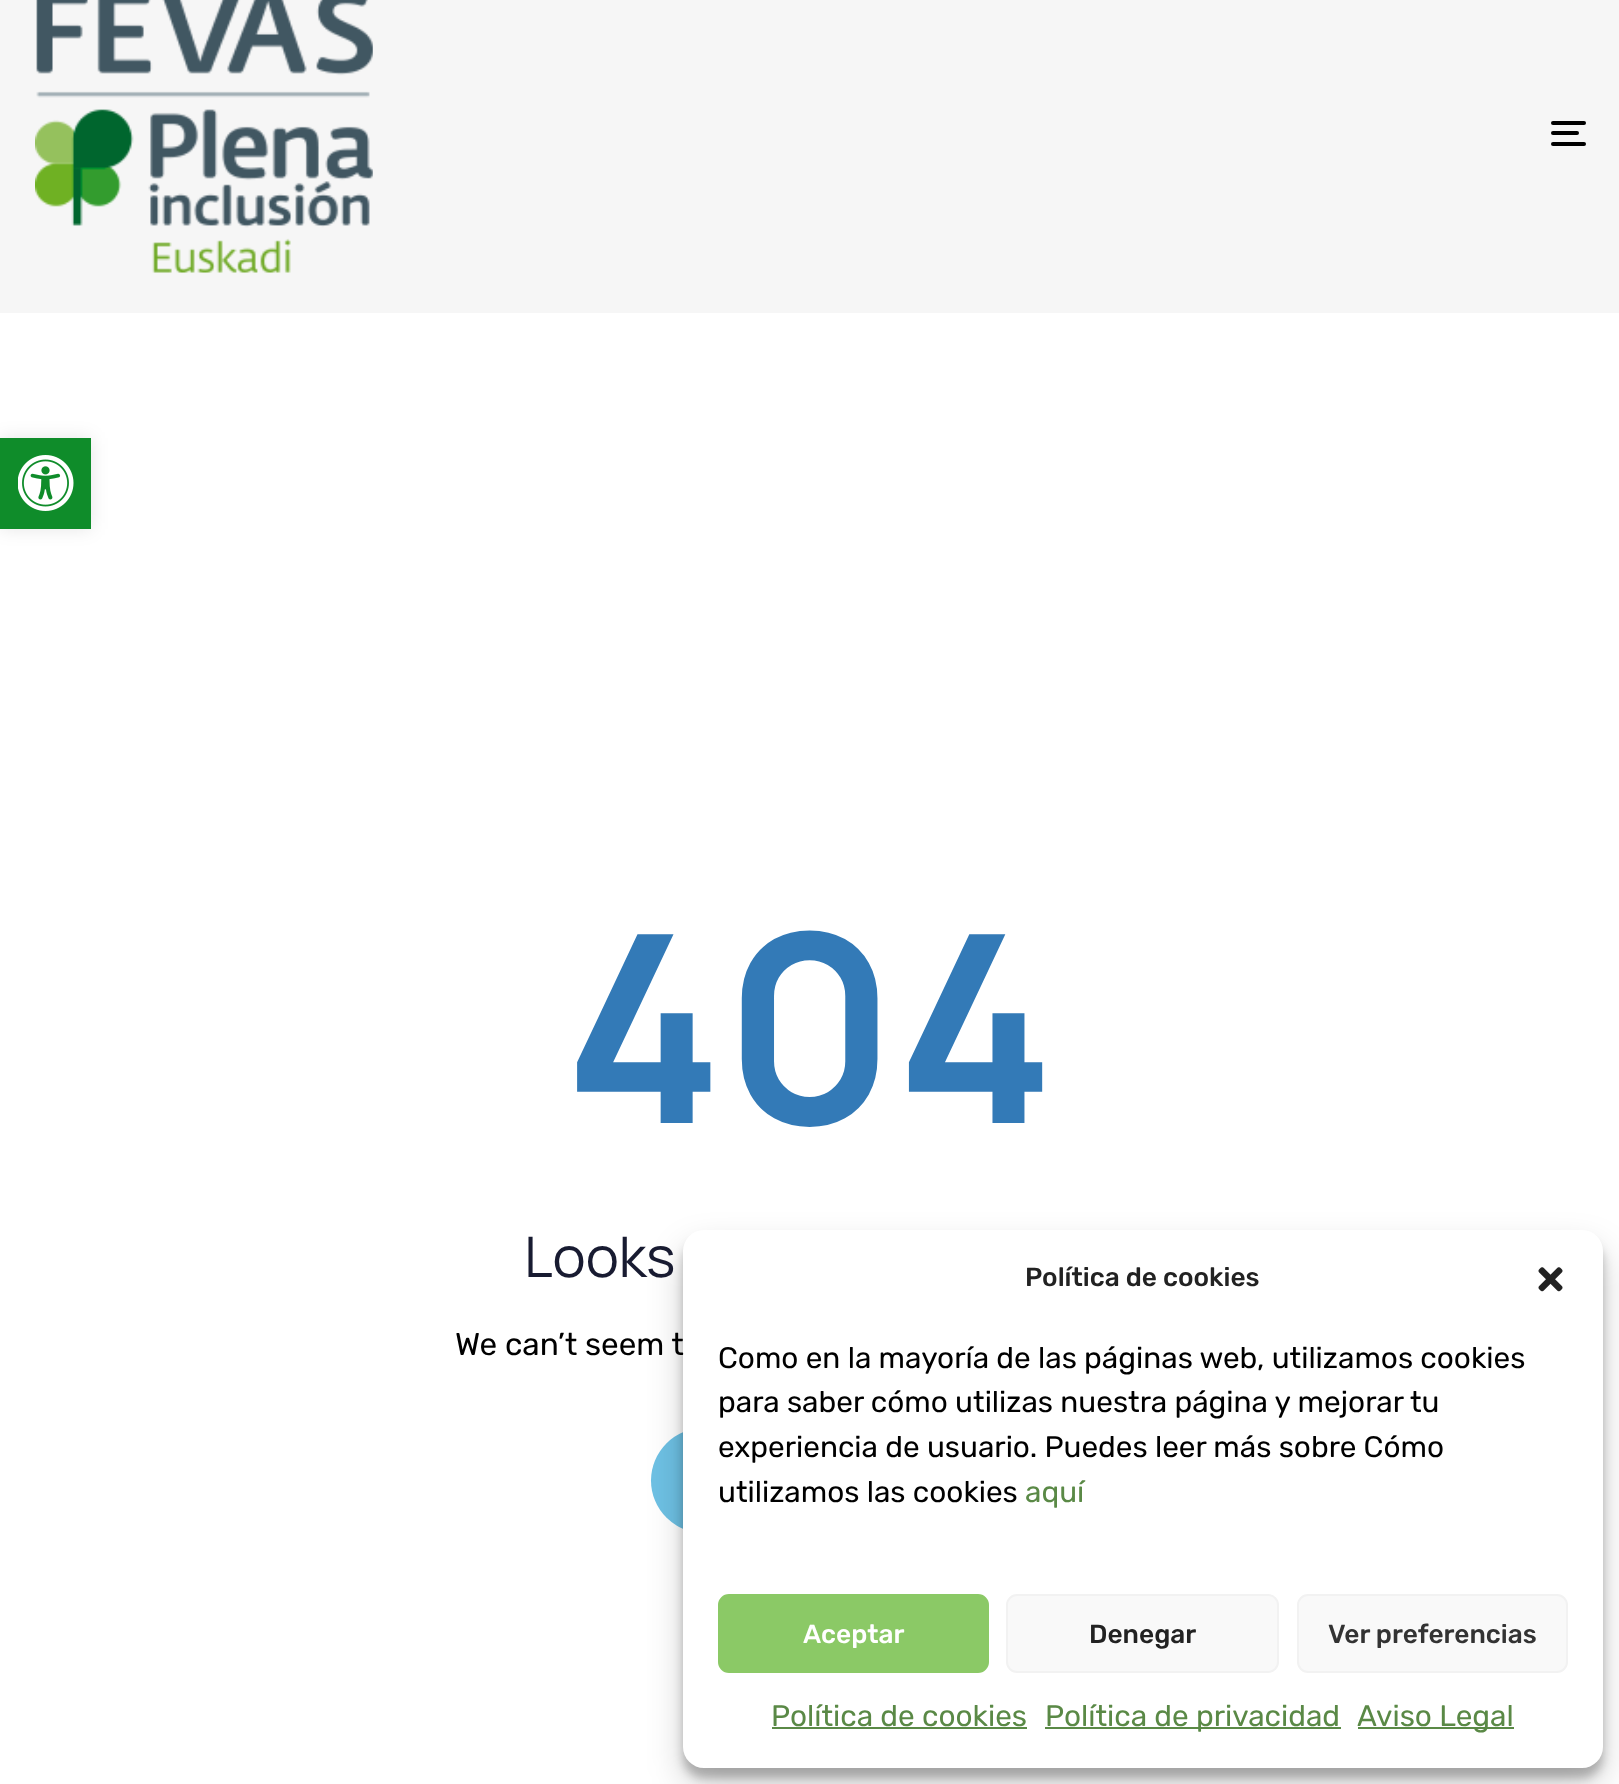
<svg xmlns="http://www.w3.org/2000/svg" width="1619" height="1784">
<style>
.a{font:bold 262px Manrope;fill:#337ab7}
.b{font:56px Manrope;fill:#181b31}
.c{font:31.5px Rubik;fill:#000}
.d{font:500 26.25px Rubik;fill:#222}
.e{font:29.75px Rubik;fill:#000}
.f{font:29.75px Rubik;fill:#5a8946}
.g{font:500 26.25px Rubik;fill:#fff}
.h{font:500 26.25px Rubik;fill:#333}
</style>
<rect width="100%" height="100%" fill="#fff"/>
<path fill="#0000001a" filter="blur(9px)" d="M0 438h91v91H0z"/>
<path fill="#0f8c2a" d="M0 438h91v91H0z"/>
<image href="1.png" x="18" y="455" width="56" height="56"/>
<path fill="#f6f6f6" d="M0 0h1619v313H0z"/>
<image href="2.png" x="35" y="0" width="338" height="273"/>
<rect fill="#000" x="1551" y="121" width="35" height="4" rx="2"/>
<rect fill="#000" x="1551" y="131" width="28" height="4" rx="2"/>
<rect fill="#000" x="1551" y="142" width="35" height="4" rx="2"/>
<rect fill="#6ec1e4" x="651" y="1428" width="319" height="105" rx="52.5"/>
<rect fill="#0000003b" filter="blur(5px)" x="683" y="1241" width="920" height="537" rx="21"/>
<rect fill="#00000030" filter="blur(17.5px)" x="683" y="1248" width="920" height="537" rx="21"/>
<rect fill="#fff" x="683" y="1230" width="920" height="538" rx="21"/>
<image href="3.png" x="1538" y="1267" width="25" height="25"/>
<rect fill="#8bc966" stroke="#8bc966" stroke-width="2" x="719" y="1595" width="269" height="77" rx="10"/>
<rect fill="#f9f9f9" stroke="#f2f2f2" stroke-width="2" x="1007" y="1595" width="271" height="77" rx="10"/>
<rect fill="#f9f9f9" stroke="#f2f2f2" stroke-width="2" x="1298" y="1595" width="269" height="77" rx="10"/>
<path fill="#5a8946" d="M772 1727h255v2H772z"/>
<path fill="#5a8946" d="M1045 1727h296v2H1045z"/>
<path fill="#5a8946" d="M1358 1727h156v2H1358z"/>
<text class="a" x="564" y="1123">404</text>
<text class="b" x="524" y="1277">Looks</text>
<text class="c" x="455" y="1355">We can’t seem t</text>
<text class="d" x="1025" y="1286">Política de cookies</text>
<text class="e" x="718" y="1368">Como en la mayoría de las páginas web, utilizamos cookies</text>
<text class="e" x="718" y="1412">para saber cómo utilizas nuestra página y mejorar tu</text>
<text class="e" x="718" y="1457">experiencia de usuario. Puedes leer más sobre Cómo</text>
<text class="e" x="718" y="1502">utilizamos las cookies</text>
<text class="f" x="1025" y="1502">aquí</text>
<text class="g" x="803" y="1643">Aceptar</text>
<text class="d" x="1089" y="1643">Denegar</text>
<text class="h" x="1328" y="1643">Ver preferencias</text>
<text class="f" x="771" y="1726">Política de cookies</text>
<text class="f" x="1045" y="1726">Política de privacidad</text>
<text class="f" x="1357" y="1726">Aviso Legal</text>
</svg>
